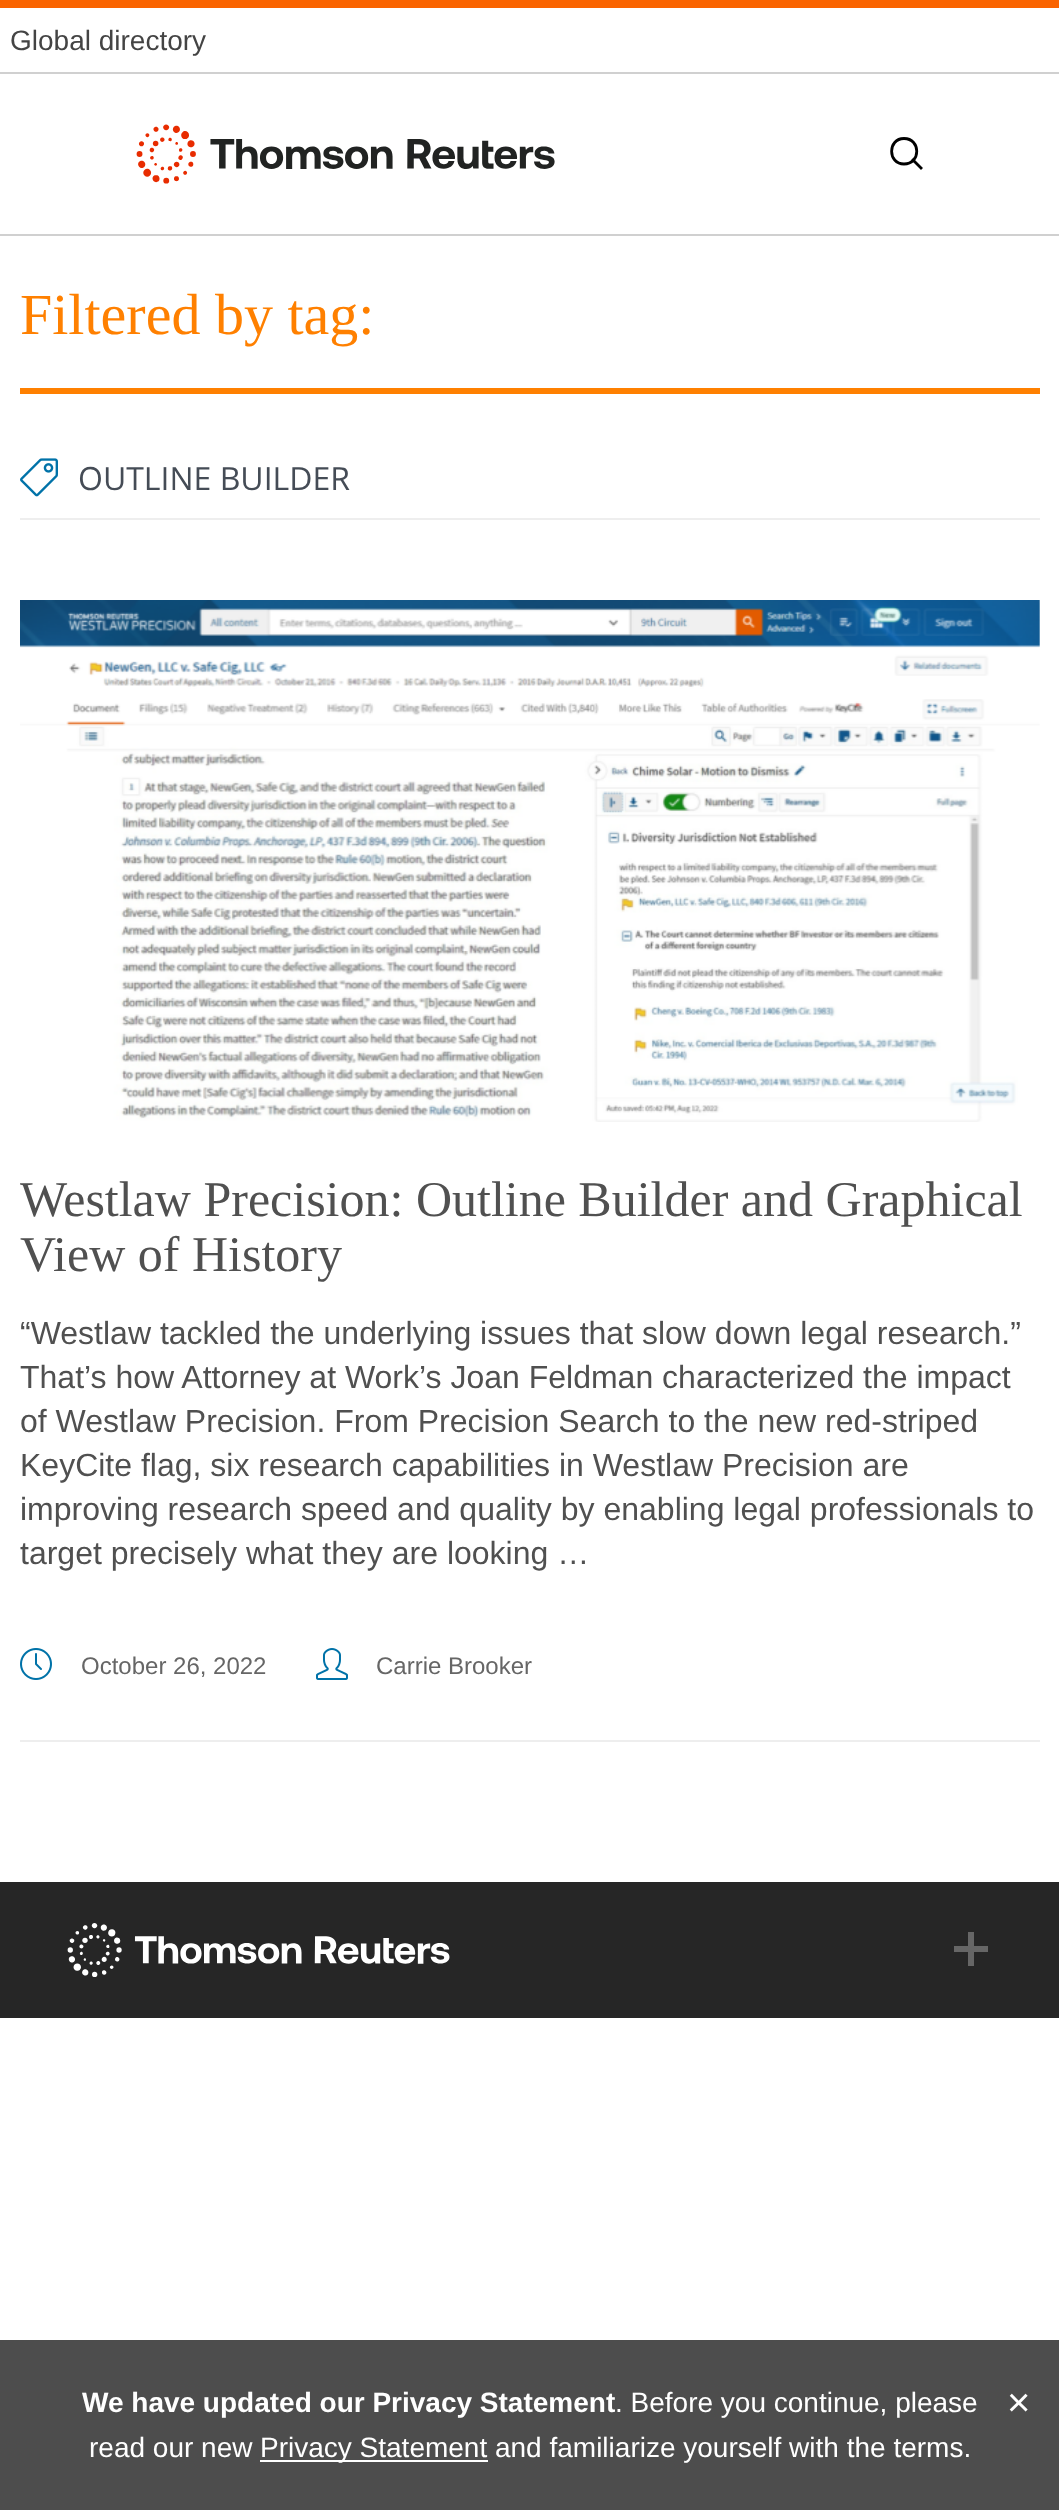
<svg xmlns="http://www.w3.org/2000/svg" width="1059" height="2510">
<style>
.a{font:28px Liberation Sans;fill:#444}
.b{font:58px Liberation Serif;fill:#ff8000}
.c{font:32px Open Sans;fill:#454c56}
.d{font:50px Liberation Serif;fill:#505050}
.e{font:32px Liberation Sans;fill:#505050}
.f{font:24px Liberation Sans;fill:#666}
.g{font:bold 28px Liberation Sans;fill:#fff}
.h{font:28px Liberation Sans;fill:#fff}
.i{font:40px Liberation Sans;fill:#fff}
</style>
<rect width="100%" height="100%" fill="#fff"/>
<path fill="#fa6400" d="M0 0h1059v8H0z"/>
<path fill="#d0d0d0" d="M0 234h1059v2H0z"/>
<path fill="#d0d0d0" d="M0 72h1059v2H0z"/>
<image href="1.png" x="136" y="124" width="419" height="60"/>
<path fill="none" stroke="#000" stroke-width="2.8" stroke-linecap="square" d="M921 168l-8-8m-9-21.5c-16.5 0-16.5 25.5 0 25.5c17 0 17-25.5 0-25.5z"/>
<path fill="#ff8000" d="M20 388h1020v6H20z"/>
<path fill="#eee" d="M20 518h1020v2H20z"/>
<image href="2.png" x="20" y="458" width="38" height="39"/>
<path fill="#eee" d="M20 1740h1020v2H20z"/>
<image href="3.png" x="20" y="600" width="1020" height="522"/>
<image href="4.png" x="20" y="1648" width="32" height="32"/>
<image href="5.png" x="316" y="1648" width="32" height="32"/>
<path fill="#262626" d="M0 1882h1059v136H0z"/>
<image href="6.png" x="67" y="1923" width="383" height="54"/>
<path fill="#666" d="M954 1946h34v6H954z"/>
<path fill="#666" d="M968 1932h6v34H968z"/>
<path fill="#4d4d4d" d="M0 2340h1059v170H0z"/>
<path fill="#fff" d="M260 2460h228v2H260z"/>
<text class="a" x="10" y="50">Global directory</text>
<text class="b" x="20" y="334">Filtered by tag:</text>
<text class="c" x="78" y="490">OUTLINE BUILDER</text>
<text class="d" x="20" y="1216">Westlaw Precision: Outline Builder and Graphical</text>
<text class="d" x="20" y="1271">View of History</text>
<text class="e" x="20" y="1344">“Westlaw tackled the underlying issues that slow down legal research.”</text>
<text class="e" x="20" y="1388">That’s how Attorney at Work’s Joan Feldman characterized the impact</text>
<text class="e" x="20" y="1432">of Westlaw Precision. From Precision Search to the new red-striped</text>
<text class="e" x="20" y="1476">KeyCite flag, six research capabilities in Westlaw Precision are</text>
<text class="e" x="20" y="1520">improving research speed and quality by enabling legal professionals to</text>
<text class="e" x="20" y="1564">target precisely what they are looking …</text>
<text class="f" x="81" y="1674">October 26, 2022</text>
<text class="f" x="376" y="1674">Carrie Brooker</text>
<text class="g" x="82" y="2412">We have updated our Privacy Statement</text>
<text class="h" x="615" y="2412">. Before you continue, please</text>
<text class="i" x="1007" y="2416">×</text>
<text class="h" x="89" y="2457">read our new</text>
<text class="h" x="260" y="2457">Privacy Statement and familiarize yourself with the terms.</text>
</svg>
